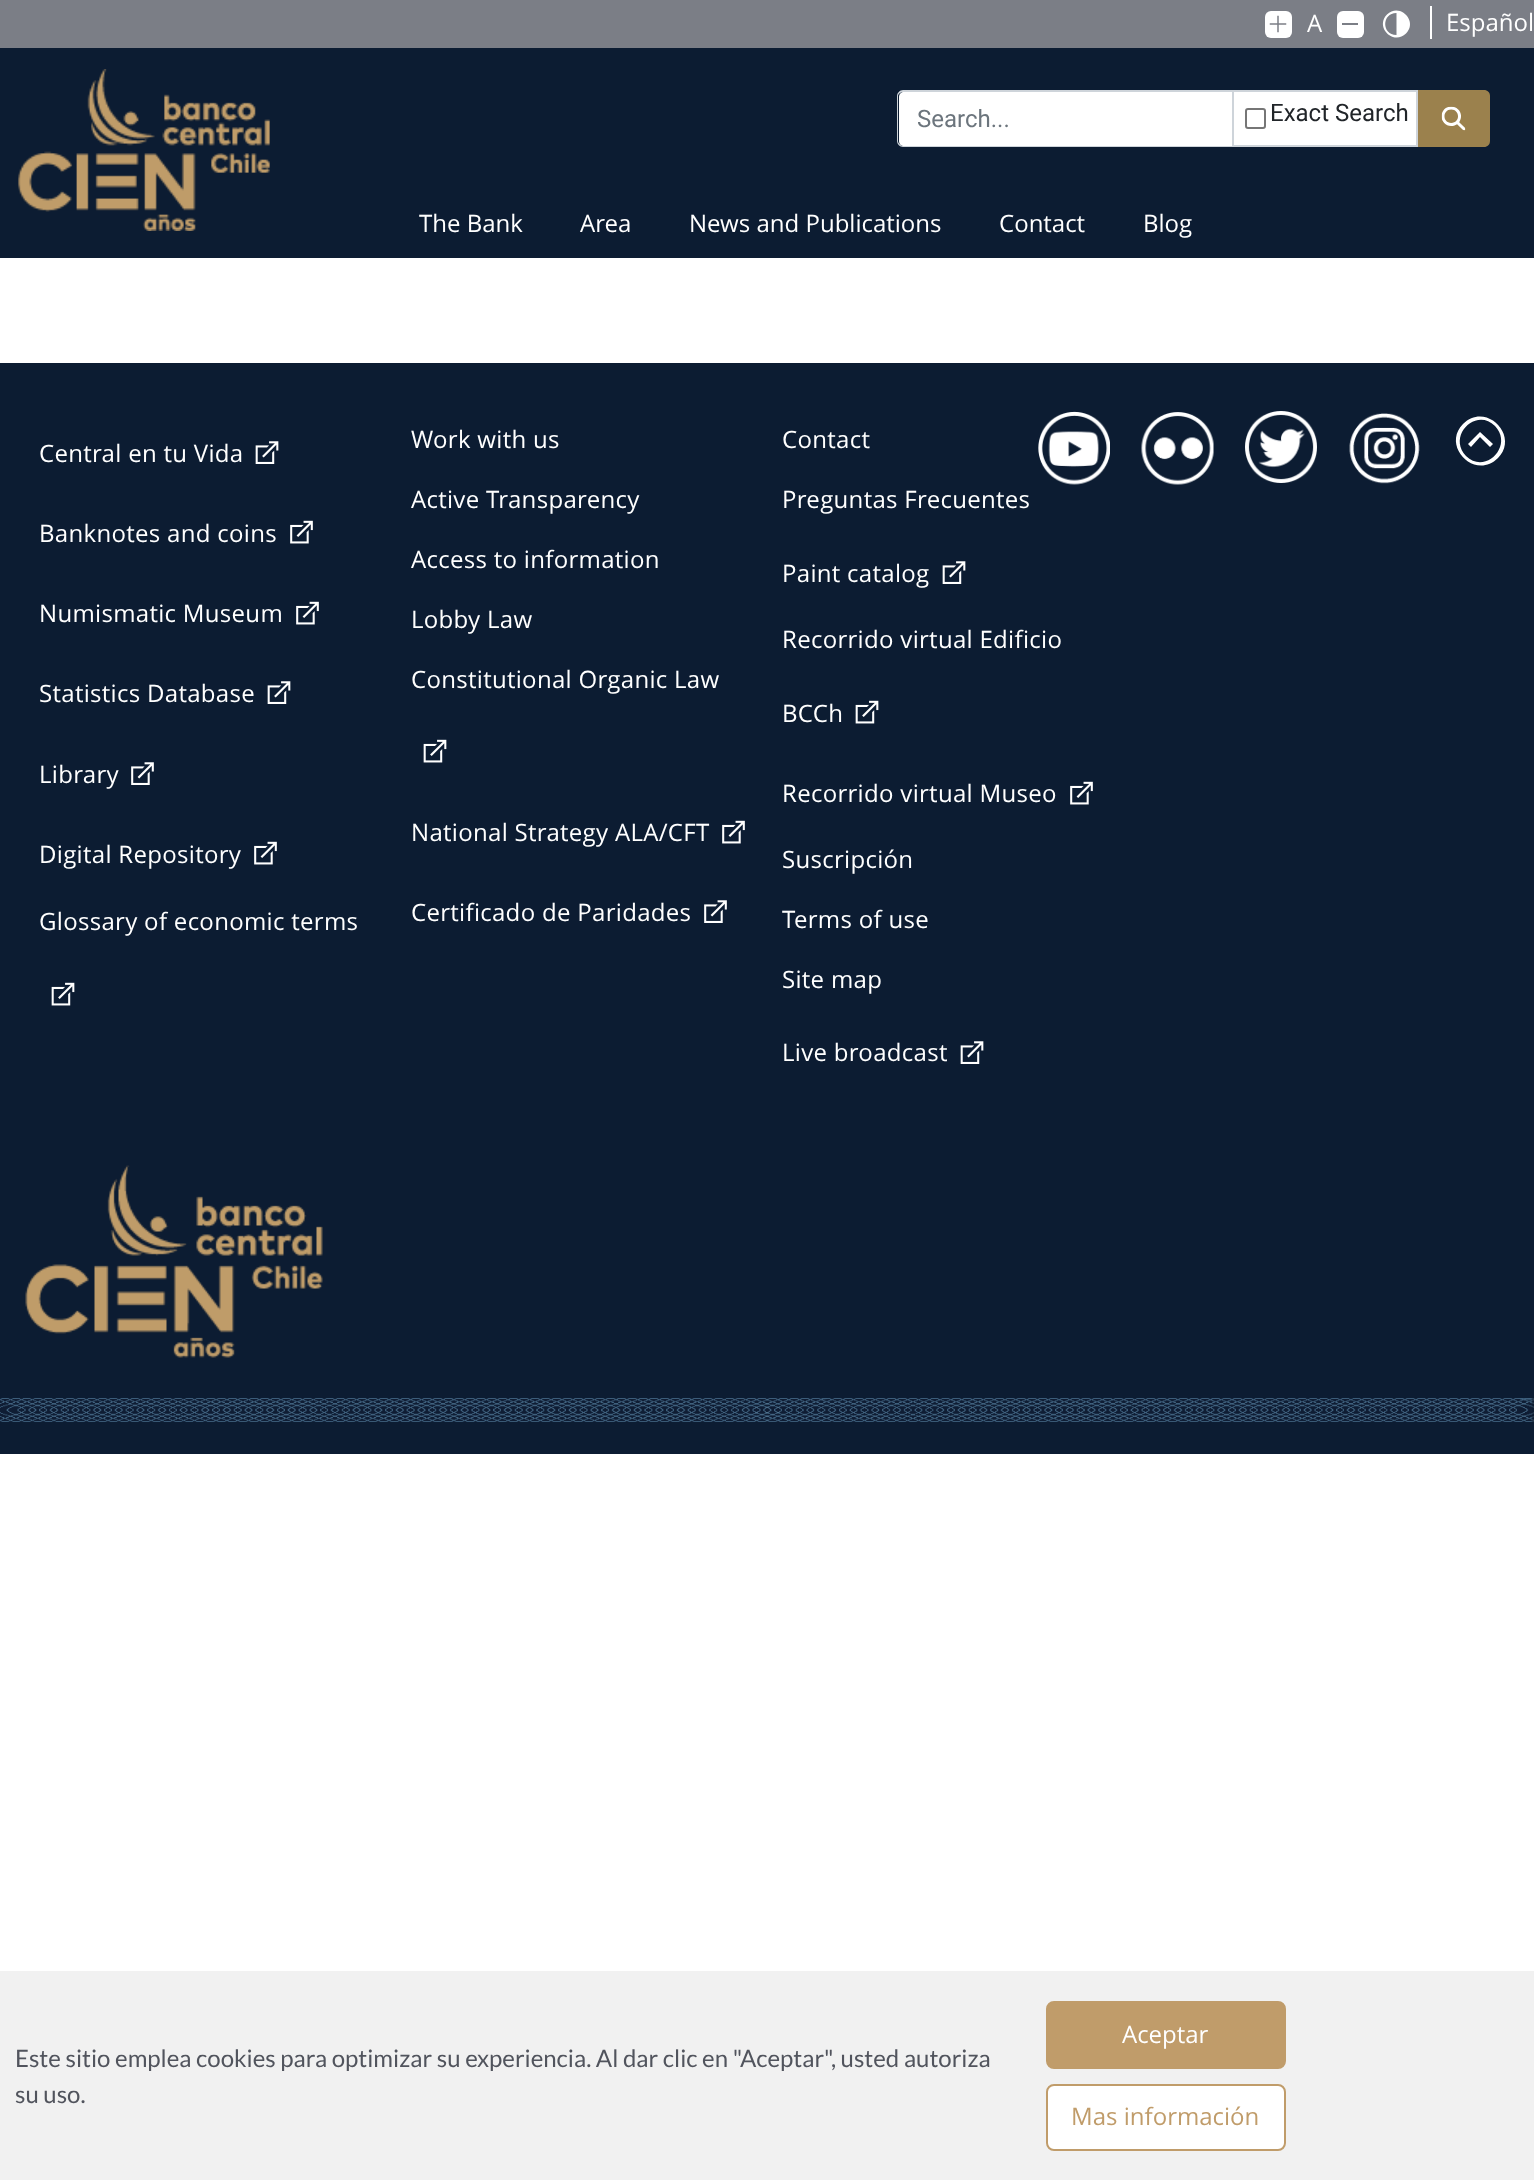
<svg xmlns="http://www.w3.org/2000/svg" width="1534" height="2180">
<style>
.a{font:24px Open Sans;fill:#fff}
.b{font:24px Roboto;fill:#6c757d}
.c{font:24px Roboto;fill:#212529}
.d{font:24px Open Sans;letter-spacing:0.3px;fill:#fff}
.e{font:24px Lato;fill:#51545d}
.f{font:24px Open Sans;fill:#c09c6a}
</style>
<rect width="100%" height="100%" fill="#fff"/>
<path fill="#7b7e86" d="M0 0h1534v48H0z"/>
<rect fill="#fff" x="1265" y="11" width="27" height="27" rx="6"/>
<image href="1.png" x="1269" y="15" width="18" height="18"/>
<rect fill="#fff" x="1337" y="11" width="27" height="27" rx="6"/>
<path fill="#7b7e86" d="M1342 23h16v2H1342z"/>
<path fill="#fff" d="M1387 14.5c12.5-12.5 31.5 6.5 19 19c-12.5 12.5-31.5-6.5-19-19zm9.5-1.5c-15 0-15 22 0 22z"/>
<path fill="#fff" d="M1430 6h2v33H1430z"/>
<path fill="#0c1c32" d="M0 48h1534v210H0z"/>
<image href="2.png" x="18" y="69" width="252" height="162"/>
<path fill="#fff" d="M904 92h328v54h-328c-3 0-5-2-5-5v-44c0-3 2-5 5-5z"/>
<path fill="#ced4da" fill-rule="evenodd" d="M903 90h329v57h-329c-3 0-6-3-6-6v-45c0-3 3-6 6-6zm0 2h329v54h-329c-2 0-5-3-5-5v-45c0-2 3-4 5-4z"/>
<path fill="#fff" stroke="#ced4da" stroke-width="2" d="M1233 91h184v55H1233z"/>
<rect fill="none" stroke="#767676" stroke-width="2" x="1246" y="109" width="19" height="19" rx="2"/>
<path fill="#9b814d" d="M1418 90h66c3.5 0 6 2.5 6 6v45c0 3.5-2.5 6-6 6h-66z"/>
<image href="3.png" x="1441" y="106" width="25" height="25"/>
<path fill="#0c1c32" d="M0 363h1534v1091H0z"/>
<image href="4.png" x="0" y="1398" width="1534" height="24"/>
<image href="5.png" x="255" y="441" width="24" height="23"/>
<image href="6.png" x="290" y="520" width="23" height="24"/>
<image href="6.png" x="296" y="601" width="23" height="24"/>
<image href="5.png" x="267" y="681" width="24" height="23"/>
<image href="7.png" x="131" y="762" width="23" height="23"/>
<image href="6.png" x="254" y="841" width="23" height="24"/>
<image href="8.png" x="51" y="982" width="24" height="24"/>
<image href="8.png" x="423" y="739" width="24" height="24"/>
<image href="6.png" x="722" y="820" width="23" height="24"/>
<image href="7.png" x="704" y="900" width="23" height="23"/>
<image href="5.png" x="942" y="561" width="24" height="23"/>
<image href="8.png" x="855" y="700" width="24" height="24"/>
<image href="6.png" x="1070" y="781" width="23" height="24"/>
<image href="5.png" x="960" y="1041" width="24" height="23"/>
<image href="9.png" x="1038" y="411" width="72" height="74"/>
<image href="10.png" x="1141" y="412" width="73" height="73"/>
<image href="11.png" x="1245" y="411" width="72" height="72"/>
<image href="12.png" x="1349" y="413" width="71" height="71"/>
<path fill="#fff" d="M1463 424c23-23 57 12 35 34c-23 23-57-12-35-34zm32 2c-19-19-48 10-29 30c19 19 48-10 29-30zm-15 6l13 12l-3 3l-10-10l-9 10l-3-3z"/>
<image href="13.png" x="25" y="1165" width="298" height="193"/>
<path fill="#f1f1f1" d="M0 1971h1534v209H0z"/>
<rect fill="#c09c6a" stroke="#c09c6a" stroke-width="2" x="1047" y="2002" width="238" height="66" rx="7"/>
<rect fill="#fff" stroke="#c09c6a" stroke-width="2" x="1047" y="2085" width="238" height="65" rx="7"/>
<text class="a" x="1307" y="32">A</text>
<text class="a" x="1446" y="31">Español</text>
<text class="b" x="917" y="127">Search...</text>
<text class="c" x="1270" y="121">Exact Search</text>
<text class="a" x="419" y="232">The Bank</text>
<text class="a" x="580" y="232">Area</text>
<text class="a" x="689" y="232">News and Publications</text>
<text class="a" x="999" y="232">Contact</text>
<text class="a" x="1143" y="232">Blog</text>
<text class="d" x="39" y="462">Central en tu Vida</text>
<text class="d" x="39" y="542">Banknotes and coins</text>
<text class="d" x="39" y="622">Numismatic Museum</text>
<text class="d" x="39" y="702">Statistics Database</text>
<text class="d" x="39" y="783">Library</text>
<text class="d" x="39" y="863">Digital Repository</text>
<text class="d" x="39" y="930">Glossary of economic terms</text>
<text class="d" x="411" y="448">Work with us</text>
<text class="d" x="411" y="508">Active Transparency</text>
<text class="d" x="411" y="568">Access to information</text>
<text class="d" x="411" y="628">Lobby Law</text>
<text class="d" x="411" y="688">Constitutional Organic Law</text>
<text class="d" x="411" y="841">National Strategy ALA/CFT</text>
<text class="d" x="411" y="921">Certificado de Paridades</text>
<text class="d" x="782" y="448">Contact</text>
<text class="d" x="782" y="508">Preguntas Frecuentes</text>
<text class="d" x="782" y="582">Paint catalog</text>
<text class="d" x="782" y="648">Recorrido virtual Edificio</text>
<text class="d" x="782" y="722">BCCh</text>
<text class="d" x="782" y="802">Recorrido virtual Museo</text>
<text class="d" x="782" y="868">Suscripción</text>
<text class="d" x="782" y="928">Terms of use</text>
<text class="d" x="782" y="988">Site map</text>
<text class="d" x="782" y="1061">Live broadcast</text>
<text class="e" x="15" y="2067">Este sitio emplea cookies para optimizar su experiencia. Al dar clic en "Aceptar", usted autoriza</text>
<text class="e" x="15" y="2103">su uso.</text>
<text class="a" x="1122" y="2043">Aceptar</text>
<text class="f" x="1071" y="2125">Mas información</text>
</svg>
